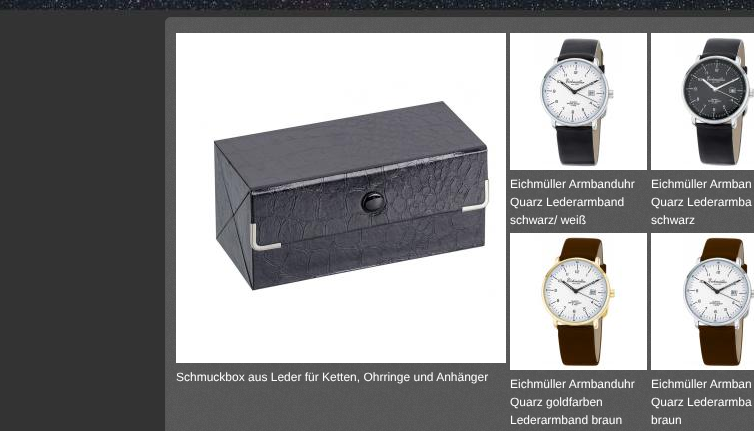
<svg xmlns="http://www.w3.org/2000/svg" width="754" height="431">
<style>
.a{font:12px Liberation Sans;fill:#fff}
</style>
<rect width="100%" height="100%" fill="#333"/>
<image href="1.png" x="0" y="0" width="754" height="16"/>
<image href="2.png" x="165" y="17" width="589" height="414"/>
<rect fill="none" stroke="#555" x="165.5" y="17.5" width="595" height="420" rx="5.5"/>
<image href="3.png" x="510" y="33" width="137" height="137"/>
<image href="4.png" x="651" y="33" width="103" height="137"/>
<image href="5.png" x="176" y="33" width="330" height="330"/>
<image href="6.png" x="510" y="233" width="137" height="137"/>
<image href="7.png" x="651" y="233" width="103" height="137"/>
<text class="a" x="510" y="188">Eichmüller Armbanduhr</text>
<text class="a" x="510" y="206">Quarz Lederarmband</text>
<text class="a" x="510" y="224">schwarz/ weiß</text>
<text class="a" x="651" y="188">Eichmüller Armban</text>
<text class="a" x="651" y="206">Quarz Lederarmba</text>
<text class="a" x="651" y="224">schwarz</text>
<text class="a" x="176" y="381">Schmuckbox aus Leder für Ketten, Ohrringe und Anhänger</text>
<text class="a" x="510" y="388">Eichmüller Armbanduhr</text>
<text class="a" x="510" y="406">Quarz goldfarben</text>
<text class="a" x="510" y="424">Lederarmband braun</text>
<text class="a" x="651" y="388">Eichmüller Armban</text>
<text class="a" x="651" y="406">Quarz Lederarmba</text>
<text class="a" x="651" y="424">braun</text>
</svg>
